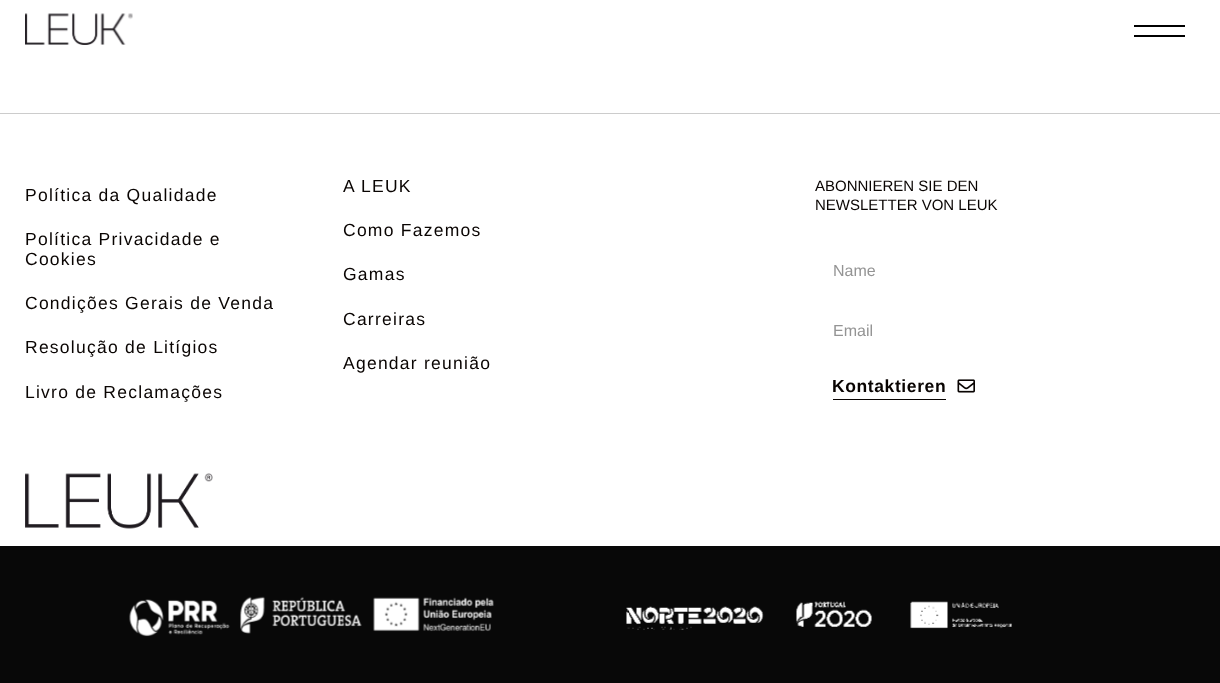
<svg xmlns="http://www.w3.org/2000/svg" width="1220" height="683">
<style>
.a{font:17.5px Liberation Sans;letter-spacing:1.25px;fill:#090402}
.b{font:15px Liberation Sans;fill:#090402}
.c{font:16px Liberation Sans;fill:#949494}
.d{font:bold 17.5px Liberation Sans;letter-spacing:0.6px;fill:#090402}
</style>
<rect width="100%" height="100%" fill="#fff"/>
<image href="1.png" x="25" y="13" width="108" height="32"/>
<path fill="#000" d="M1185 25v2h-51v-2zm0 10v2h-51v-2z"/>
<path fill="#ccc" d="M0 113h1220v1H0z"/>
<path fill="#090402" d="M833 399h113v1H833z"/>
<image href="2.png" x="957" y="379" width="18" height="14"/>
<image href="3.png" x="25" y="473" width="188" height="56"/>
<path fill="#080808" d="M0 546h1220v137H0z"/>
<image href="4.png" x="129" y="596" width="365" height="41"/>
<image href="5.png" x="626" y="601" width="386" height="29"/>
<text class="a" x="25" y="201">Política da Qualidade</text>
<text class="a" x="25" y="245">Política Privacidade e</text>
<text class="a" x="25" y="265">Cookies</text>
<text class="a" x="25" y="309">Condições Gerais de Venda</text>
<text class="a" x="25" y="353">Resolução de Litígios</text>
<text class="a" x="25" y="398">Livro de Reclamações</text>
<text class="a" x="343" y="192">A LEUK</text>
<text class="a" x="343" y="236">Como Fazemos</text>
<text class="a" x="343" y="280">Gamas</text>
<text class="a" x="343" y="325">Carreiras</text>
<text class="a" x="343" y="369">Agendar reunião</text>
<text class="b" x="815" y="191">ABONNIEREN SIE DEN</text>
<text class="b" x="815" y="210">NEWSLETTER VON LEUK</text>
<text class="c" x="833" y="276">Name</text>
<text class="c" x="833" y="336">Email</text>
<text class="d" x="832" y="392">Kontaktieren</text>
</svg>
